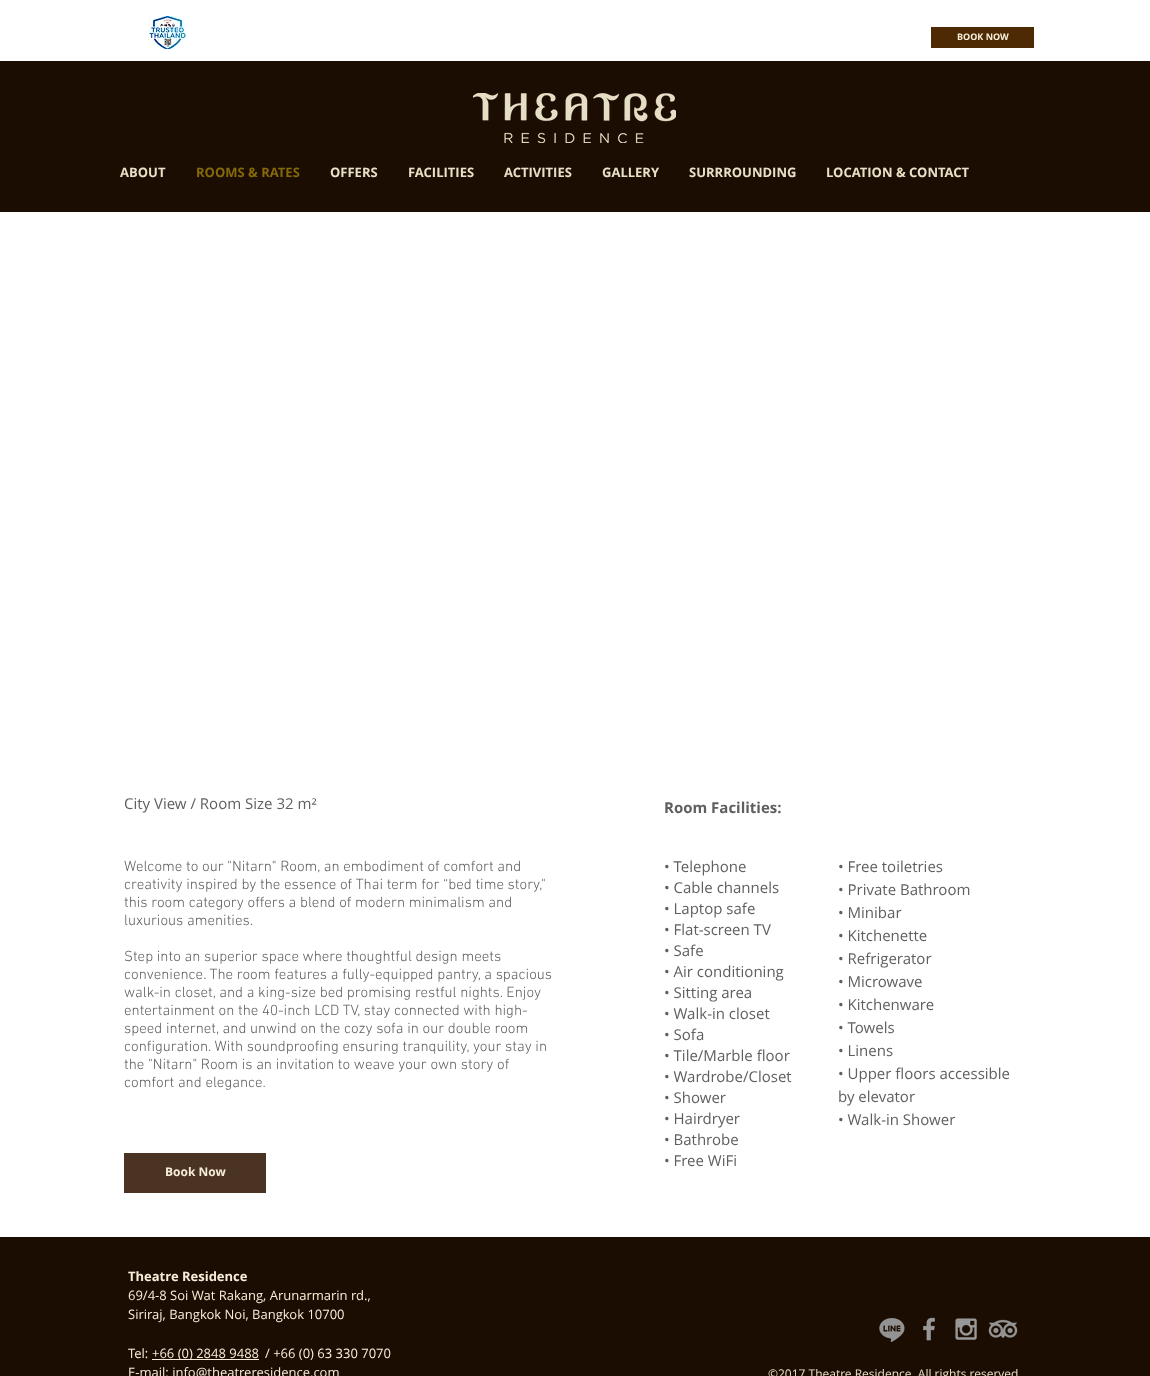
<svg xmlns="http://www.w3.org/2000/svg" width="1150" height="1376">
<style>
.a{font:bold 9px Open Sans;fill:#f7eeda}
.b{font:bold 13px Open Sans;fill:#e9e1c7}
.c{font:bold 13px Open Sans;fill:#866909}
.d{font:15px Open Sans;fill:#605e5e}
.e{font:bold 15px Open Sans;fill:#605e5e}
.f{font:300 15px 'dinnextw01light';fill:#605e5e}
.g{font:bold 12px Open Sans;fill:#f7eeda}
.h{font:bold 13px Open Sans;fill:#f7eeda}
.i{font:13px Open Sans;fill:#f7eeda}
.j{font:12px Open Sans;fill:#e9e1c7}
</style>
<rect width="100%" height="100%" fill="#fff"/>
<image href="1.png" x="148" y="16" width="39" height="33"/>
<path fill="#4d2a03" d="M931 27h103v21H931z"/>
<path fill="#1c0d02" d="M0 61h1150v151H0z"/>
<image href="2.png" x="473" y="93" width="203" height="50"/>
<path fill="#4a3323" d="M124 1153h142v40H124z"/>
<path fill="#1c0d02" d="M0 1237h1150v139H0z"/>
<image href="3.png" x="879" y="1318" width="26" height="24"/>
<image href="4.png" x="923" y="1317" width="12" height="24"/>
<image href="5.png" x="955" y="1318" width="22" height="22"/>
<image href="6.png" x="988" y="1319" width="30" height="19"/>
<path fill="#f7eeda" d="M152 1359h107v1H152z"/>
<text class="a" x="957" y="40">BOOK NOW</text>
<text class="b" x="120" y="177">ABOUT</text>
<text class="c" x="196" y="177">ROOMS &amp; RATES</text>
<text class="b" x="330" y="177">OFFERS</text>
<text class="b" x="408" y="177">FACILITIES</text>
<text class="b" x="504" y="177">ACTIVITIES</text>
<text class="b" x="602" y="177">GALLERY</text>
<text class="b" x="689" y="177">SURRROUNDING</text>
<text class="b" x="826" y="177">LOCATION &amp; CONTACT</text>
<text class="d" x="124" y="809">City View / Room Size 32 m²</text>
<text class="e" x="664" y="813">Room Facilities:</text>
<text class="f" x="124" y="871">Welcome to our "Nitarn" Room, an embodiment of comfort and</text>
<text class="f" x="124" y="889">creativity inspired by the essence of Thai term for “bed time story,"</text>
<text class="f" x="124" y="907">this room category offers a blend of modern minimalism and</text>
<text class="f" x="124" y="925">luxurious amenities.</text>
<text class="f" x="124" y="961">Step into an superior space where thoughtful design meets</text>
<text class="f" x="124" y="979">convenience. The room features a fully-equipped pantry, a spacious</text>
<text class="f" x="124" y="997">walk-in closet, and a king-size bed promising restful nights. Enjoy</text>
<text class="f" x="124" y="1015">entertainment on the 40-inch LCD TV, stay connected with high-</text>
<text class="f" x="124" y="1033">speed internet, and unwind on the cozy sofa in our double room</text>
<text class="f" x="124" y="1051">configuration. With soundproofing ensuring tranquility, your stay in</text>
<text class="f" x="124" y="1069">the "Nitarn" Room is an invitation to weave your own story of</text>
<text class="f" x="124" y="1087">comfort and elegance.</text>
<text class="d" x="664" y="872">• Telephone</text>
<text class="d" x="664" y="893">• Cable channels</text>
<text class="d" x="664" y="914">• Laptop safe</text>
<text class="d" x="664" y="935">• Flat-screen TV</text>
<text class="d" x="664" y="956">• Safe</text>
<text class="d" x="664" y="977">• Air conditioning</text>
<text class="d" x="664" y="998">• Sitting area</text>
<text class="d" x="664" y="1019">• Walk-in closet</text>
<text class="d" x="664" y="1040">• Sofa</text>
<text class="d" x="664" y="1061">• Tile/Marble floor</text>
<text class="d" x="664" y="1082">• Wardrobe/Closet</text>
<text class="d" x="664" y="1103">• Shower</text>
<text class="d" x="664" y="1124">• Hairdryer</text>
<text class="d" x="664" y="1145">• Bathrobe</text>
<text class="d" x="664" y="1166">• Free WiFi</text>
<text class="d" x="838" y="872">• Free toiletries</text>
<text class="d" x="838" y="895">• Private Bathroom</text>
<text class="d" x="838" y="918">• Minibar</text>
<text class="d" x="838" y="941">• Kitchenette</text>
<text class="d" x="838" y="964">• Refrigerator</text>
<text class="d" x="838" y="987">• Microwave</text>
<text class="d" x="838" y="1010">• Kitchenware</text>
<text class="d" x="838" y="1033">• Towels</text>
<text class="d" x="838" y="1056">• Linens</text>
<text class="d" x="838" y="1079">• Upper floors accessible</text>
<text class="d" x="838" y="1102">by elevator</text>
<text class="d" x="838" y="1125">• Walk-in Shower</text>
<text class="g" x="165" y="1176">Book Now</text>
<text class="h" x="128" y="1281">Theatre Residence</text>
<text class="i" x="128" y="1300">69/4-8 Soi Wat Rakang, Arunarmarin rd.,</text>
<text class="i" x="128" y="1319">Siriraj, Bangkok Noi, Bangkok 10700</text>
<text class="i" x="128" y="1358">Tel:</text>
<text class="i" x="152" y="1358">+66 (0) 2848 9488</text>
<text class="i" x="265" y="1358">/ +66 (0) 63 330 7070</text>
<text class="i" x="128" y="1377">E-mail: info@theatreresidence.com</text>
<text class="j" x="768" y="1378">©2017 Theatre Residence. All rights reserved</text>
</svg>
